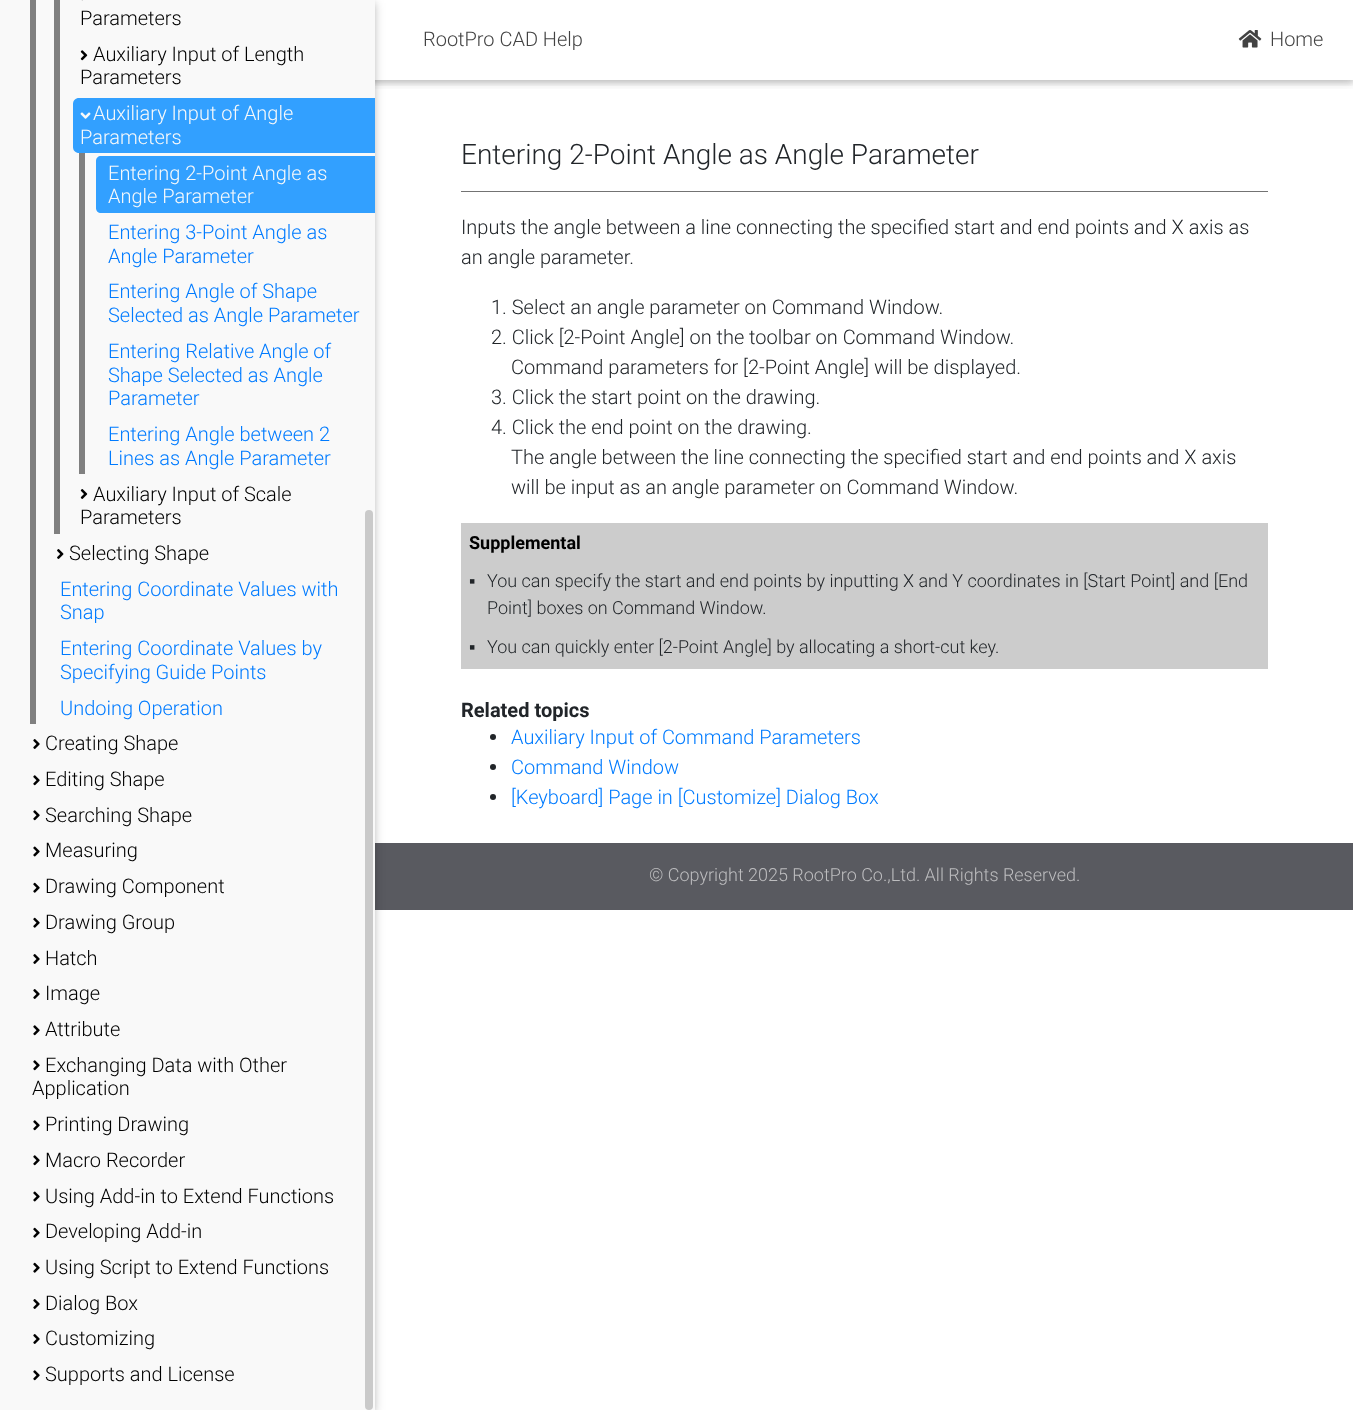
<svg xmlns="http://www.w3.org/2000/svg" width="1353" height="1410">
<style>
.a{font:300 20px Roboto;fill:#000}
.b{font:300 20px Roboto;fill:#f8f9fa}
.c{font:300 20px Roboto;fill:#007bff}
.d{font:300 20px Roboto;fill:#424242}
.e{font:300 28px Roboto;fill:#212529}
.f{font:300 20px Roboto;fill:#212529}
.g{font:bold 18px Roboto;fill:#000}
.h{font:18px Liberation Sans;fill:#212529}
.i{font:300 18px Roboto;fill:#212529}
.j{font:bold 20px Roboto;fill:#212529}
.k{font:300 18px Roboto;fill:#bdbdbf}
</style>
<defs>
<clipPath id="clip1"><path d="M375 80h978v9H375z"/></clipPath>
<clipPath id="clip2"><path d="M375 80h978v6H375z"/></clipPath>
</defs>
<rect width="100%" height="100%" fill="#fff"/>
<path fill="#595a60" d="M375 843h978v67H375z"/>
<path fill="#0000001f" filter="blur(6px)" d="M0 3h375v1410H0z"/>
<path fill="#00000029" filter="blur(3px)" d="M0 3h375v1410H0z"/>
<g clip-path="url(#clip1)">
<path fill="#0000001f" filter="blur(6px)" d="M0 3h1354v80H0z"/>
</g>
<g clip-path="url(#clip2)">
<path fill="#00000029" filter="blur(3px)" d="M0 3h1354v80H0z"/>
</g>
<path fill="#f9f9f9" d="M0 0h375v1410H0z"/>
<path fill="#808080" d="M30 0h6v724H30z"/>
<path fill="#808080" d="M54 0h6v534H54z"/>
<image href="1.png" x="81" y="0" width="2" height="1"/>
<image href="2.png" x="80" y="50" width="8" height="11"/>
<path fill="#32a0ff" d="M79 98h296v55h-296c-3.5 0-6-2.5-6-6v-43c0-3.5 2.5-6 6-6z"/>
<image href="3.png" x="80" y="112" width="11" height="7"/>
<path fill="#808080" d="M79 153h6v321H79z"/>
<path fill="#32a0ff" d="M101 156h274v57h-274c-3 0-5-2-5-5v-47c0-3 2-5 5-5z"/>
<image href="4.png" x="80" y="489" width="8" height="10"/>
<image href="5.png" x="57" y="549" width="7" height="10"/>
<image href="6.png" x="33" y="739" width="7" height="10"/>
<image href="7.png" x="33" y="775" width="7" height="11"/>
<image href="7.png" x="33" y="810" width="7" height="11"/>
<image href="8.png" x="33" y="846" width="7" height="11"/>
<image href="9.png" x="33" y="882" width="7" height="11"/>
<image href="9.png" x="33" y="917" width="7" height="11"/>
<image href="6.png" x="33" y="954" width="7" height="10"/>
<image href="6.png" x="33" y="989" width="7" height="10"/>
<image href="7.png" x="33" y="1025" width="7" height="11"/>
<image href="7.png" x="33" y="1060" width="7" height="11"/>
<image href="7.png" x="33" y="1120" width="7" height="11"/>
<image href="7.png" x="33" y="1155" width="7" height="11"/>
<image href="8.png" x="33" y="1191" width="7" height="11"/>
<image href="9.png" x="33" y="1227" width="7" height="11"/>
<image href="9.png" x="33" y="1262" width="7" height="11"/>
<image href="6.png" x="33" y="1299" width="7" height="10"/>
<image href="6.png" x="33" y="1334" width="7" height="10"/>
<image href="7.png" x="33" y="1370" width="7" height="11"/>
<rect fill="#cacaca" x="365" y="510" width="8" height="900" rx="4"/>
<image href="10.png" x="1238" y="30" width="24" height="18"/>
<path fill="#737373" d="M461 191h807v1H461z"/>
<path fill="#ccc" d="M461 523h807v146H461z"/>
<circle fill="#212529" cx="493" cy="737" r="3"/>
<circle fill="#212529" cx="493" cy="767" r="3"/>
<circle fill="#212529" cx="493" cy="797" r="3"/>
<text class="a" x="80" y="25">Parameters</text>
<text class="a" x="93" y="61">Auxiliary Input of Length</text>
<text class="a" x="80" y="84">Parameters</text>
<text class="b" x="93" y="120">Auxiliary Input of Angle</text>
<text class="b" x="80" y="144">Parameters</text>
<text class="b" x="108" y="180">Entering 2-Point Angle as</text>
<text class="b" x="108" y="203">Angle Parameter</text>
<text class="c" x="108" y="239">Entering 3-Point Angle as</text>
<text class="c" x="108" y="263">Angle Parameter</text>
<text class="c" x="108" y="298">Entering Angle of Shape</text>
<text class="c" x="108" y="322">Selected as Angle Parameter</text>
<text class="c" x="108" y="358">Entering Relative Angle of</text>
<text class="c" x="108" y="382">Shape Selected as Angle</text>
<text class="c" x="108" y="405">Parameter</text>
<text class="c" x="108" y="441">Entering Angle between 2</text>
<text class="c" x="108" y="465">Lines as Angle Parameter</text>
<text class="a" x="93" y="501">Auxiliary Input of Scale</text>
<text class="a" x="80" y="524">Parameters</text>
<text class="a" x="69" y="560">Selecting Shape</text>
<text class="c" x="60" y="596">Entering Coordinate Values with</text>
<text class="c" x="60" y="619">Snap</text>
<text class="c" x="60" y="655">Entering Coordinate Values by</text>
<text class="c" x="60" y="679">Specifying Guide Points</text>
<text class="c" x="60" y="715">Undoing Operation</text>
<text class="a" x="45" y="750">Creating Shape</text>
<text class="a" x="45" y="786">Editing Shape</text>
<text class="a" x="45" y="822">Searching Shape</text>
<text class="a" x="45" y="857">Measuring</text>
<text class="a" x="45" y="893">Drawing Component</text>
<text class="a" x="45" y="929">Drawing Group</text>
<text class="a" x="45" y="965">Hatch</text>
<text class="a" x="45" y="1000">Image</text>
<text class="a" x="45" y="1036">Attribute</text>
<text class="a" x="45" y="1072">Exchanging Data with Other</text>
<text class="a" x="32" y="1095">Application</text>
<text class="a" x="45" y="1131">Printing Drawing</text>
<text class="a" x="45" y="1167">Macro Recorder</text>
<text class="a" x="45" y="1203">Using Add-in to Extend Functions</text>
<text class="a" x="45" y="1238">Developing Add-in</text>
<text class="a" x="45" y="1274">Using Script to Extend Functions</text>
<text class="a" x="45" y="1310">Dialog Box</text>
<text class="a" x="45" y="1345">Customizing</text>
<text class="a" x="45" y="1381">Supports and License</text>
<text class="d" x="423" y="46">RootPro CAD Help</text>
<text class="d" x="1270" y="46">Home</text>
<text class="e" x="461" y="164">Entering 2-Point Angle as Angle Parameter</text>
<text class="f" x="461" y="234">Inputs the angle between a line connecting the specified start and end points and X axis as</text>
<text class="f" x="461" y="264">an angle parameter.</text>
<text class="f" x="491" y="314">1. Select an angle parameter on Command Window.</text>
<text class="f" x="491" y="344">2. Click [2-Point Angle] on the toolbar on Command Window.</text>
<text class="f" x="511" y="374">Command parameters for [2-Point Angle] will be displayed.</text>
<text class="f" x="491" y="404">3. Click the start point on the drawing.</text>
<text class="f" x="491" y="434">4. Click the end point on the drawing.</text>
<text class="f" x="511" y="464">The angle between the line connecting the specified start and end points and X axis</text>
<text class="f" x="511" y="494">will be input as an angle parameter on Command Window.</text>
<text class="g" x="469" y="549">Supplemental</text>
<text class="h" x="469" y="587">▪</text>
<text class="i" x="487" y="587">You can specify the start and end points by inputting X and Y coordinates in [Start Point] and [End</text>
<text class="i" x="487" y="614">Point] boxes on Command Window.</text>
<text class="h" x="469" y="653">▪</text>
<text class="i" x="487" y="653">You can quickly enter [2-Point Angle] by allocating a short-cut key.</text>
<text class="j" x="461" y="717">Related topics</text>
<text class="c" x="511" y="744">Auxiliary Input of Command Parameters</text>
<text class="c" x="511" y="774">Command Window</text>
<text class="c" x="511" y="804">[Keyboard] Page in [Customize] Dialog Box</text>
<text class="k" x="649" y="881">© Copyright 2025 RootPro Co.,Ltd. All Rights Reserved.</text>
</svg>
